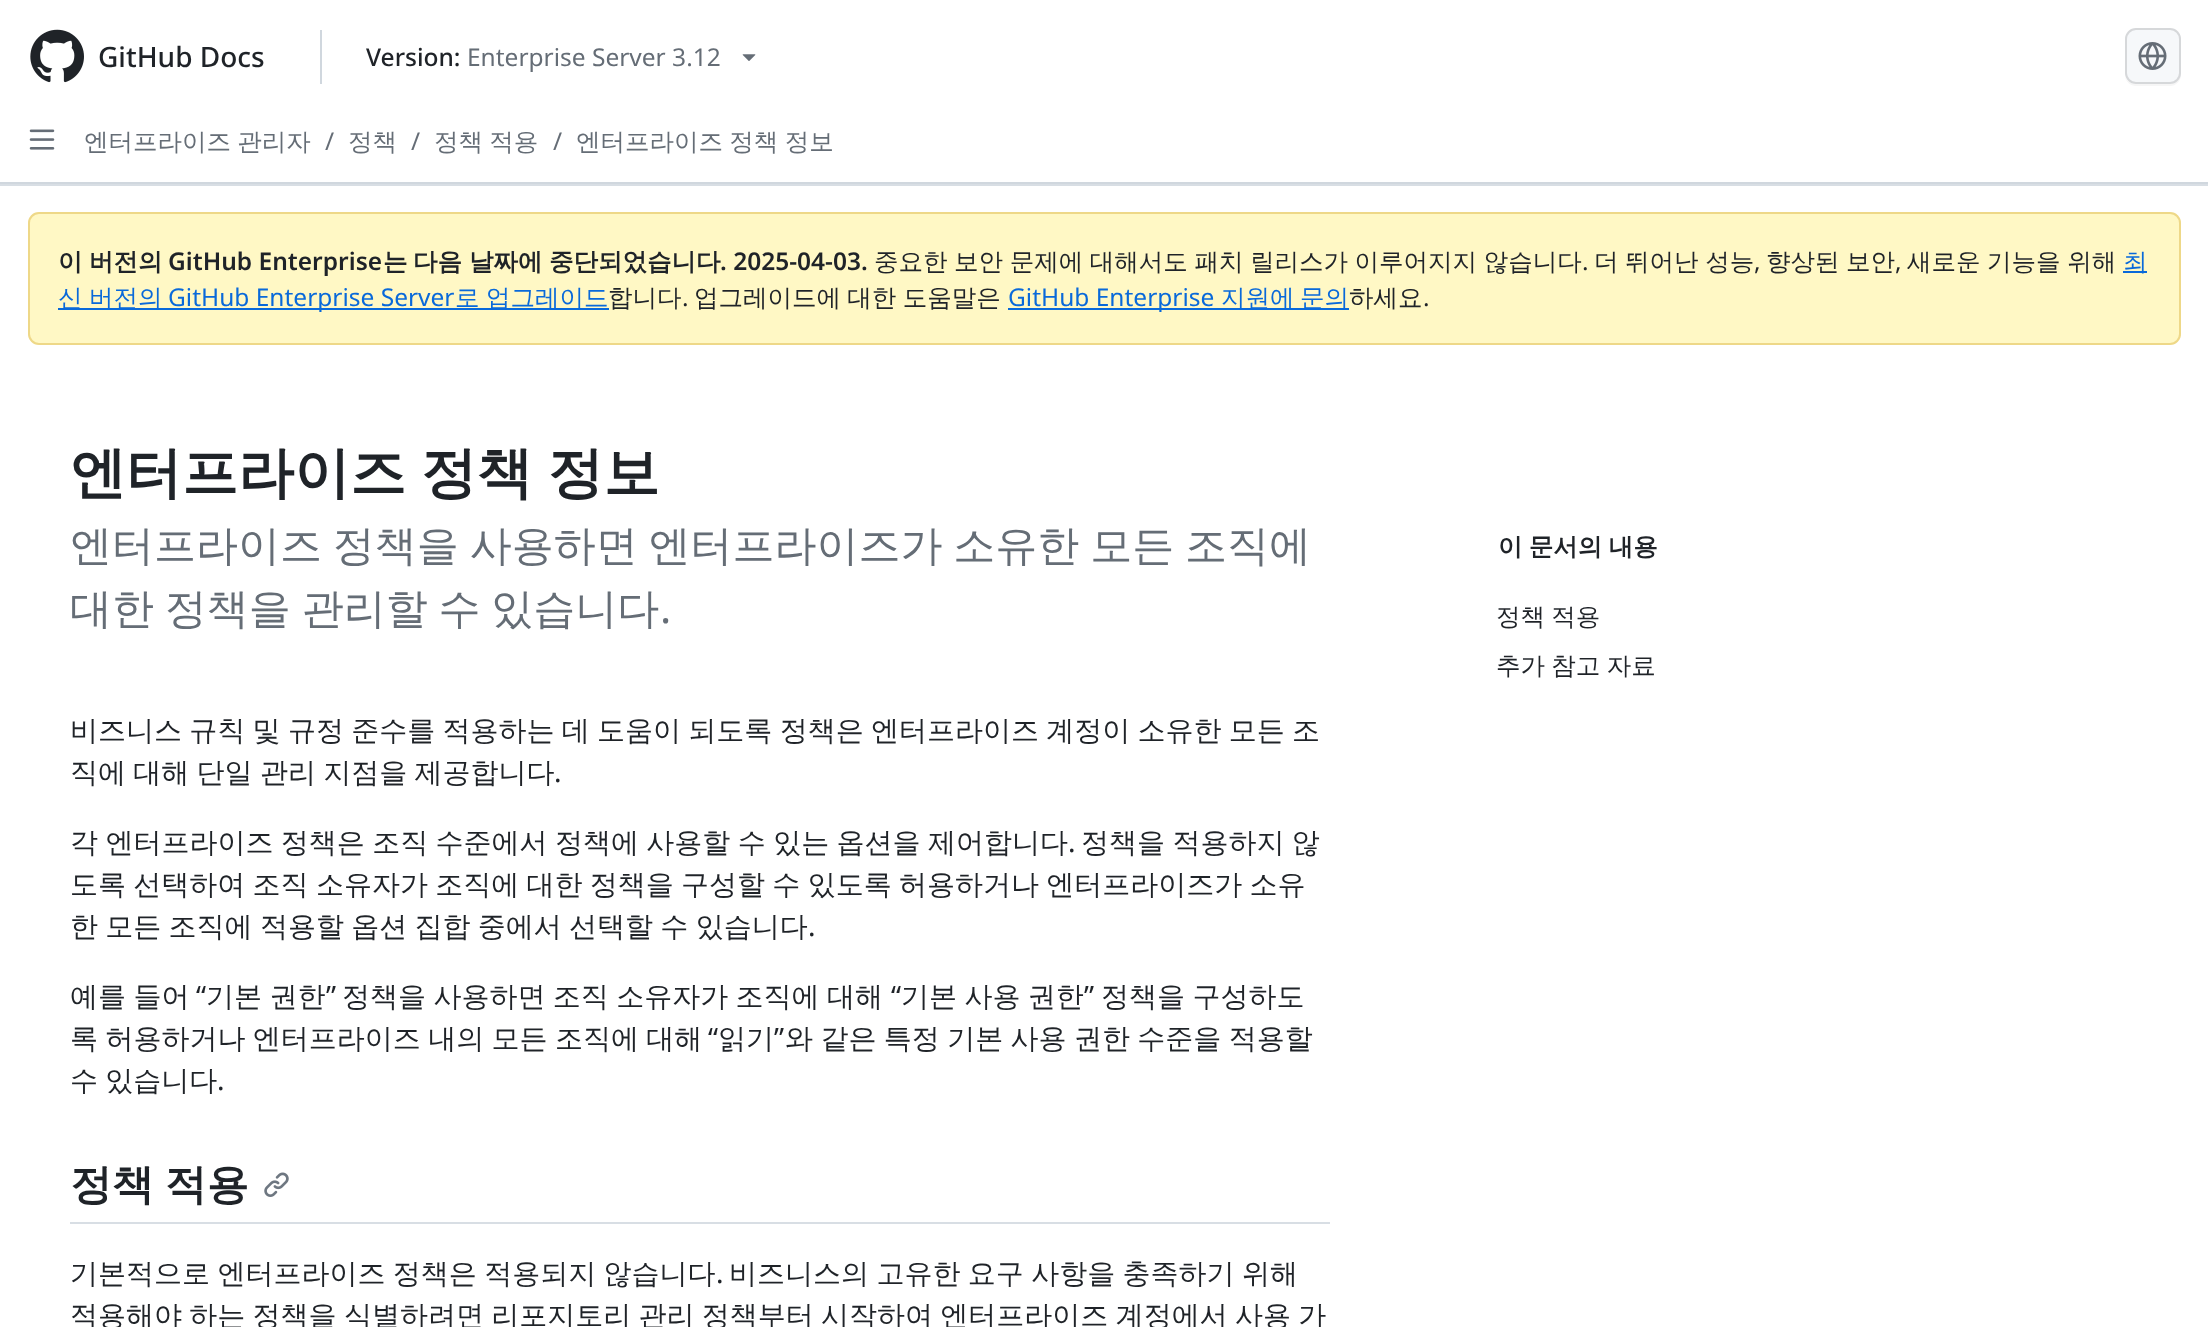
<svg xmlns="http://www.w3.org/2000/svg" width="2208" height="1327">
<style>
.a{font:500 28px Noto Sans;fill:#1f2328}
.b{font:500 24.5px Noto Sans;fill:#1f2328}
.c{font:24.5px Noto Sans;fill:#656d76}
.d{font:500 24.5px WenQuanYi Zen Hei;fill:#656d76}
.e{font:bold 24.5px WenQuanYi Zen Hei;fill:#1f2328}
.f{font:600 24.5px Noto Sans;fill:#1f2328}
.g{font:500 24.5px WenQuanYi Zen Hei;fill:#1f2328}
.h{font:24.5px Noto Sans;fill:#1f2328}
.i{font:500 24.5px WenQuanYi Zen Hei;fill:#0969da}
.j{font:24.5px Noto Sans;fill:#0969da}
.k{font:bold 56px WenQuanYi Zen Hei;fill:#1f2328}
.l{font:500 42px WenQuanYi Zen Hei;fill:#656d76}
.m{font:42px Noto Sans;fill:#656d76}
.n{font:500 28px WenQuanYi Zen Hei;fill:#1f2328}
.o{font:28px Noto Sans;fill:#1f2328}
.p{font:bold 42px WenQuanYi Zen Hei;fill:#1f2328}
</style>
<rect width="100%" height="100%" fill="#fff"/>
<path fill="#d8dee4" d="M0 184h2208v2H0z"/>
<path fill="#d0d7de" d="M0 182h2208v2H0z"/>
<image href="1.png" x="30" y="29" width="54" height="54"/>
<path fill="#d0d7de" d="M320 30h2v54H320z"/>
<image href="2.png" x="742" y="54" width="14" height="7"/>
<path fill="#f6f6f6" d="M2125 77c1 5 6 9 11 9h34c6 0 11-5 11-11v-34l-1-3v38l-1 3c-4 5-9 5-15 5h-23c-6 0-13 0-16-7z"/>
<rect fill="#f6f8fa" x="2125" y="28" width="56" height="56" rx="11"/>
<rect fill="none" stroke="#1f232826" stroke-width="2" x="2126" y="29" width="54" height="54" rx="10"/>
<image href="3.png" x="2138" y="42" width="29" height="28"/>
<image href="4.png" x="29" y="129" width="26" height="21"/>
<rect fill="#fff8c5" x="28" y="212" width="2153" height="133" rx="11"/>
<rect fill="none" stroke="#d4a72c66" stroke-width="2" x="29" y="213" width="2151" height="131" rx="10"/>
<path fill="#0969da" d="M2123 271h24v2H2123z"/>
<path fill="#0969da" d="M58 308h551v2H58z"/>
<path fill="#0969da" d="M1008 308h341v2H1008z"/>
<path fill="#d8dee4" d="M70 1222h1260v2H70z"/>
<image href="5.png" x="264" y="1172" width="25" height="25"/>
<text class="a" x="98" y="67">GitHub Docs</text>
<text class="b" x="366" y="66">Version:</text>
<text class="c" x="467" y="66">Enterprise Server 3.12</text>
<text class="d" x="84" y="150" word-spacing="-1">엔터프라이즈 관리자</text>
<text class="c" x="325" y="150">/</text>
<text class="d" x="348" y="150">정책</text>
<text class="c" x="411" y="150">/</text>
<text class="d" x="434" y="150" word-spacing="-1">정책 적용</text>
<text class="c" x="553" y="150">/</text>
<text class="d" x="576" y="150" word-spacing="-1">엔터프라이즈 정책 정보</text>
<text class="e" x="58" y="270">이</text>
<text class="e" x="89" y="270">버전의</text>
<text class="f" x="168" y="270">GitHub Enterprise</text>
<text class="e" x="383" y="270">는</text>
<text class="e" x="413" y="270">다음</text>
<text class="e" x="469" y="270">날짜에</text>
<text class="e" x="549" y="270">중단되었습니다</text>
<text class="f" x="720" y="270">. 2025-04-03.</text>
<text class="g" x="874" y="270" word-spacing="-0.75">중요한 보안 문제에 대해서도 패치 릴리스가 이루어지지 않습니다</text>
<text class="h" x="1582" y="270">.</text>
<text class="g" x="1594" y="270" word-spacing="-0.75">더 뛰어난 성능</text>
<text class="h" x="1754" y="270">,</text>
<text class="g" x="1766" y="270" word-spacing="-0.75">향상된 보안</text>
<text class="h" x="1895" y="270">,</text>
<text class="g" x="1907" y="270" word-spacing="-0.75">새로운 기능을 위해</text>
<text class="i" x="2123" y="270">최</text>
<text class="i" x="58" y="306">신</text>
<text class="i" x="89" y="306">버전의</text>
<text class="j" x="168" y="306">GitHub Enterprise Server</text>
<text class="i" x="455" y="306">로</text>
<text class="i" x="486" y="306">업그레이드</text>
<text class="g" x="608" y="306">합니다</text>
<text class="h" x="682" y="306">.</text>
<text class="g" x="694" y="306" word-spacing="-1">업그레이드에 대한 도움말은</text>
<text class="j" x="1008" y="306">GitHub Enterprise</text>
<text class="i" x="1221" y="306">지원에</text>
<text class="i" x="1300" y="306">문의</text>
<text class="g" x="1349" y="306">하세요</text>
<text class="h" x="1423" y="306">.</text>
<text class="k" x="70" y="492" word-spacing="-2">엔터프라이즈 정책 정보</text>
<text class="l" x="70" y="560" word-spacing="-1.75">엔터프라이즈 정책을 사용하면 엔터프라이즈가 소유한 모든 조직에</text>
<text class="l" x="70" y="623" word-spacing="-1.75">대한 정책을 관리할 수 있습니다</text>
<text class="m" x="660" y="623">.</text>
<text class="e" x="1498" y="555" word-spacing="-1">이 문서의 내용</text>
<text class="g" x="1496" y="625" word-spacing="-1">정책 적용</text>
<text class="g" x="1496" y="674" word-spacing="-1">추가 참고 자료</text>
<text class="n" x="70" y="740" word-spacing="-1.1">비즈니스 규칙 및 규정 준수를 적용하는 데 도움이 되도록 정책은 엔터프라이즈 계정이 소유한 모든 조</text>
<text class="n" x="70" y="782" word-spacing="-1.1">직에 대해 단일 관리 지점을 제공합니다</text>
<text class="o" x="554" y="782">.</text>
<text class="n" x="70" y="852" word-spacing="-1">각 엔터프라이즈 정책은 조직 수준에서 정책에 사용할 수 있는 옵션을 제어합니다</text>
<text class="o" x="1068" y="852">.</text>
<text class="n" x="1081" y="852" word-spacing="-1">정책을 적용하지 않</text>
<text class="n" x="70" y="894" word-spacing="-1.1">도록 선택하여 조직 소유자가 조직에 대한 정책을 구성할 수 있도록 허용하거나 엔터프라이즈가 소유</text>
<text class="n" x="70" y="936" word-spacing="-1.1">한 모든 조직에 적용할 옵션 집합 중에서 선택할 수 있습니다</text>
<text class="o" x="808" y="936">.</text>
<text class="n" x="70" y="1006" word-spacing="-1">예를 들어</text>
<text class="o" x="196" y="1006">“</text>
<text class="n" x="206" y="1006" word-spacing="-1">기본 권한</text>
<text class="o" x="326" y="1006">”</text>
<text class="n" x="342" y="1006" word-spacing="-1">정책을 사용하면 조직 소유자가 조직에 대해</text>
<text class="o" x="891" y="1006">“</text>
<text class="n" x="901" y="1006" word-spacing="-1">기본 사용 권한</text>
<text class="o" x="1084" y="1006">”</text>
<text class="n" x="1101" y="1006" word-spacing="-1">정책을 구성하도</text>
<text class="n" x="70" y="1048" word-spacing="-1">록 허용하거나 엔터프라이즈 내의 모든 조직에 대해</text>
<text class="o" x="708" y="1048">“</text>
<text class="n" x="718" y="1048">읽기</text>
<text class="o" x="774" y="1048">”</text>
<text class="n" x="785" y="1048" word-spacing="-1">와 같은 특정 기본 사용 권한 수준을 적용할</text>
<text class="n" x="70" y="1090" word-spacing="-1.1">수 있습니다</text>
<text class="o" x="217" y="1090">.</text>
<text class="p" x="70" y="1199" word-spacing="-1.75">정책 적용</text>
<text class="n" x="70" y="1283" word-spacing="-1">기본적으로 엔터프라이즈 정책은 적용되지 않습니다</text>
<text class="o" x="716" y="1283">.</text>
<text class="n" x="729" y="1283" word-spacing="-1">비즈니스의 고유한 요구 사항을 충족하기 위해</text>
<text class="n" x="70" y="1325" word-spacing="-1.1">적용해야 하는 정책을 식별하려면 리포지토리 관리 정책부터 시작하여 엔터프라이즈 계정에서 사용 가</text>
</svg>
